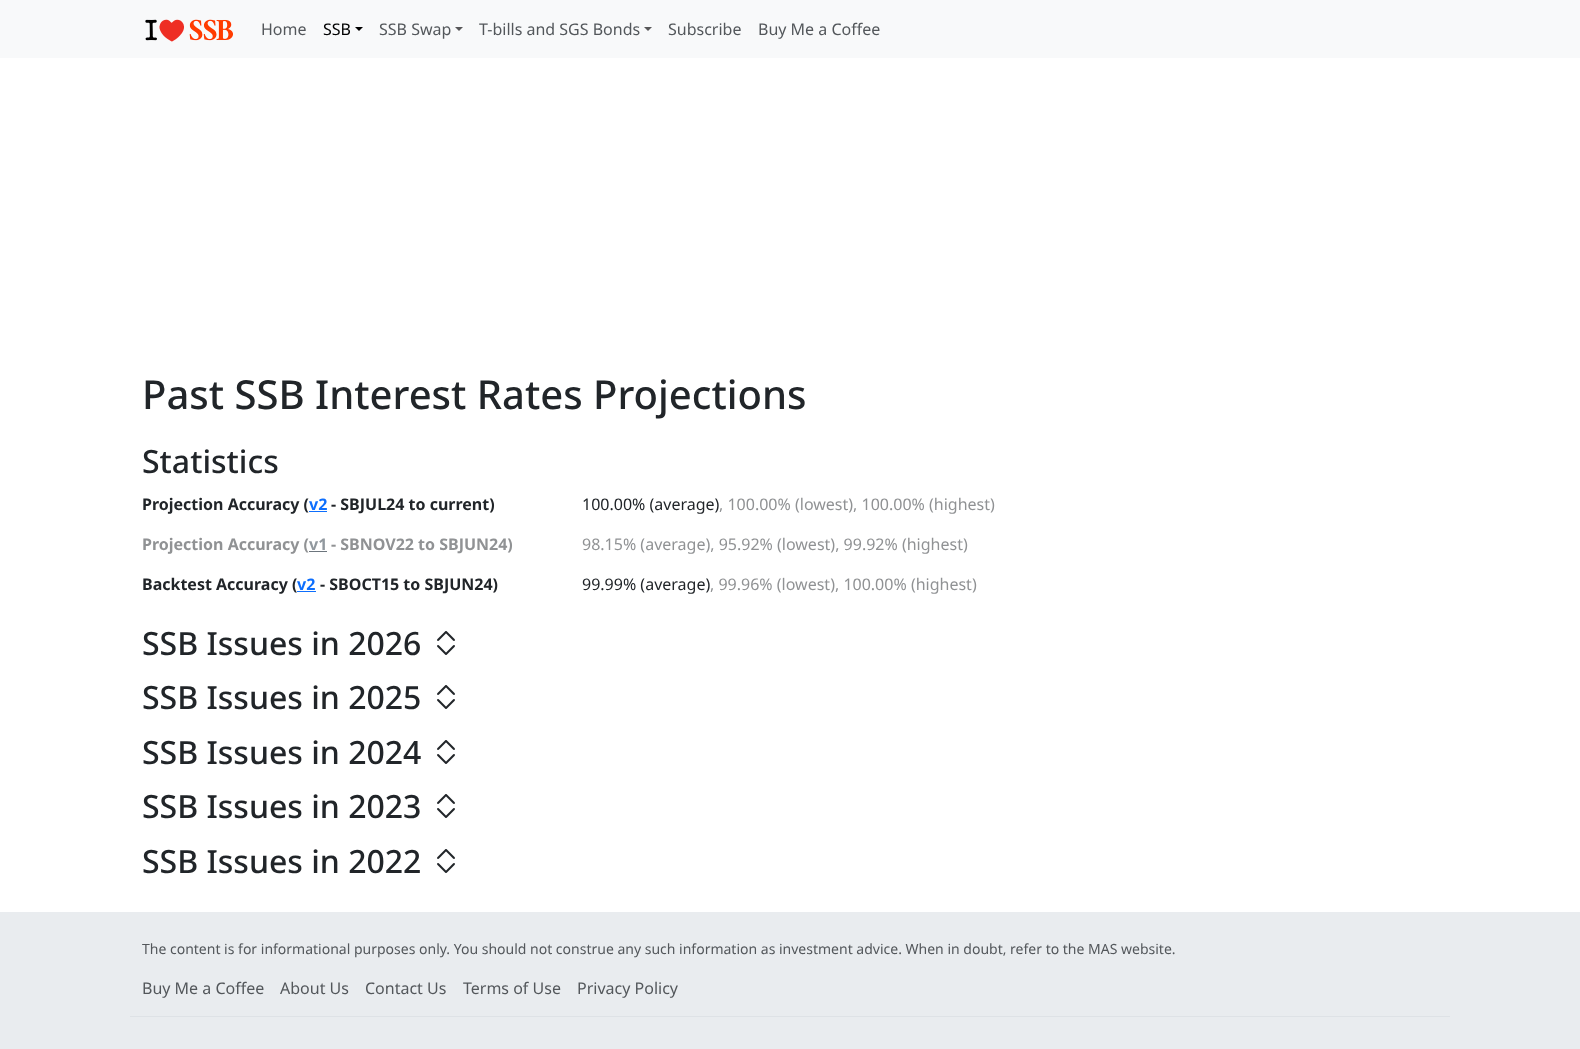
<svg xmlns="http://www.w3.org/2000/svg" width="1580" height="1049">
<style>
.a{font:16px Noto Sans;fill:#53575b}
.b{font:16px Noto Sans;fill:#000}
.c{font:500 40px Noto Sans;fill:#212529}
.d{font:500 32px Noto Sans;fill:#212529}
.e{font:bold 16px Noto Sans;fill:#212529}
.f{font:bold 16px Noto Sans;fill:#0d6efd}
.g{font:16px Noto Sans;fill:#212529}
.h{font:16px Noto Sans;fill:#909294}
.i{font:bold 16px Noto Sans;fill:#909294}
.j{font:bold 16px Noto Sans;fill:#91989e}
.k{font:14px Noto Sans;fill:#53575b}
</style>
<rect width="100%" height="100%" fill="#fff"/>
<path fill="#f8f9fa" d="M0 0h1580v58H0z"/>
<image href="1.png" x="145" y="19" width="88" height="23"/>
<path fill="#000" d="M355 27h8l-4 4z"/>
<path fill="#575758" d="M455 27h8l-4 4z"/>
<path fill="#575758" d="M644 27h8l-4 4z"/>
<path fill="#0d6efd" d="M309 511h18v1H309z"/>
<path fill="#6c757d" d="M309 551h18v1H309z"/>
<path fill="#0d6efd" d="M297 591h19v1H297z"/>
<image href="2.png" x="437" y="631" width="18" height="24"/>
<image href="2.png" x="437" y="685" width="18" height="24"/>
<image href="2.png" x="437" y="740" width="18" height="24"/>
<image href="2.png" x="437" y="794" width="18" height="24"/>
<image href="2.png" x="437" y="849" width="18" height="24"/>
<path fill="#e9ecef" d="M0 912h1580v137H0z"/>
<path fill="#dee2e6" d="M130 1016h1320v1H130z"/>
<text class="a" x="261" y="35">Home</text>
<text class="b" x="323" y="35">SSB</text>
<text class="a" x="379" y="35">SSB Swap</text>
<text class="a" x="479" y="35">T-bills and SGS Bonds</text>
<text class="a" x="668" y="35">Subscribe</text>
<text class="a" x="758" y="35">Buy Me a Coffee</text>
<text class="c" x="142" y="409">Past SSB Interest Rates Projections</text>
<text class="d" x="142" y="473">Statistics</text>
<text class="e" x="142" y="510">Projection Accuracy (</text>
<text class="f" x="309" y="510">v2</text>
<text class="e" x="331" y="510">- SBJUL24 to current)</text>
<text class="g" x="582" y="510">100.00% (average)</text>
<text class="h" x="719" y="510">, 100.00% (lowest), 100.00% (highest)</text>
<text class="i" x="142" y="550">Projection Accuracy (</text>
<text class="j" x="309" y="550">v1</text>
<text class="i" x="331" y="550">- SBNOV22 to SBJUN24)</text>
<text class="h" x="582" y="550">98.15% (average), 95.92% (lowest), 99.92% (highest)</text>
<text class="e" x="142" y="590">Backtest Accuracy (</text>
<text class="f" x="297" y="590">v2</text>
<text class="e" x="320" y="590">- SBOCT15 to SBJUN24)</text>
<text class="g" x="582" y="590">99.99% (average)</text>
<text class="h" x="710" y="590">, 99.96% (lowest), 100.00% (highest)</text>
<text class="d" x="142" y="655">SSB Issues in 2026</text>
<text class="d" x="142" y="709">SSB Issues in 2025</text>
<text class="d" x="142" y="764">SSB Issues in 2024</text>
<text class="d" x="142" y="818">SSB Issues in 2023</text>
<text class="d" x="142" y="873">SSB Issues in 2022</text>
<text class="k" x="142" y="954">The content is for informational purposes only. You should not construe any such information as investment advice. When in doubt, refer to the MAS website.</text>
<text class="a" x="142" y="994">Buy Me a Coffee</text>
<text class="a" x="280" y="994">About Us</text>
<text class="a" x="365" y="994">Contact Us</text>
<text class="a" x="463" y="994">Terms of Use</text>
<text class="a" x="577" y="994">Privacy Policy</text>
</svg>
